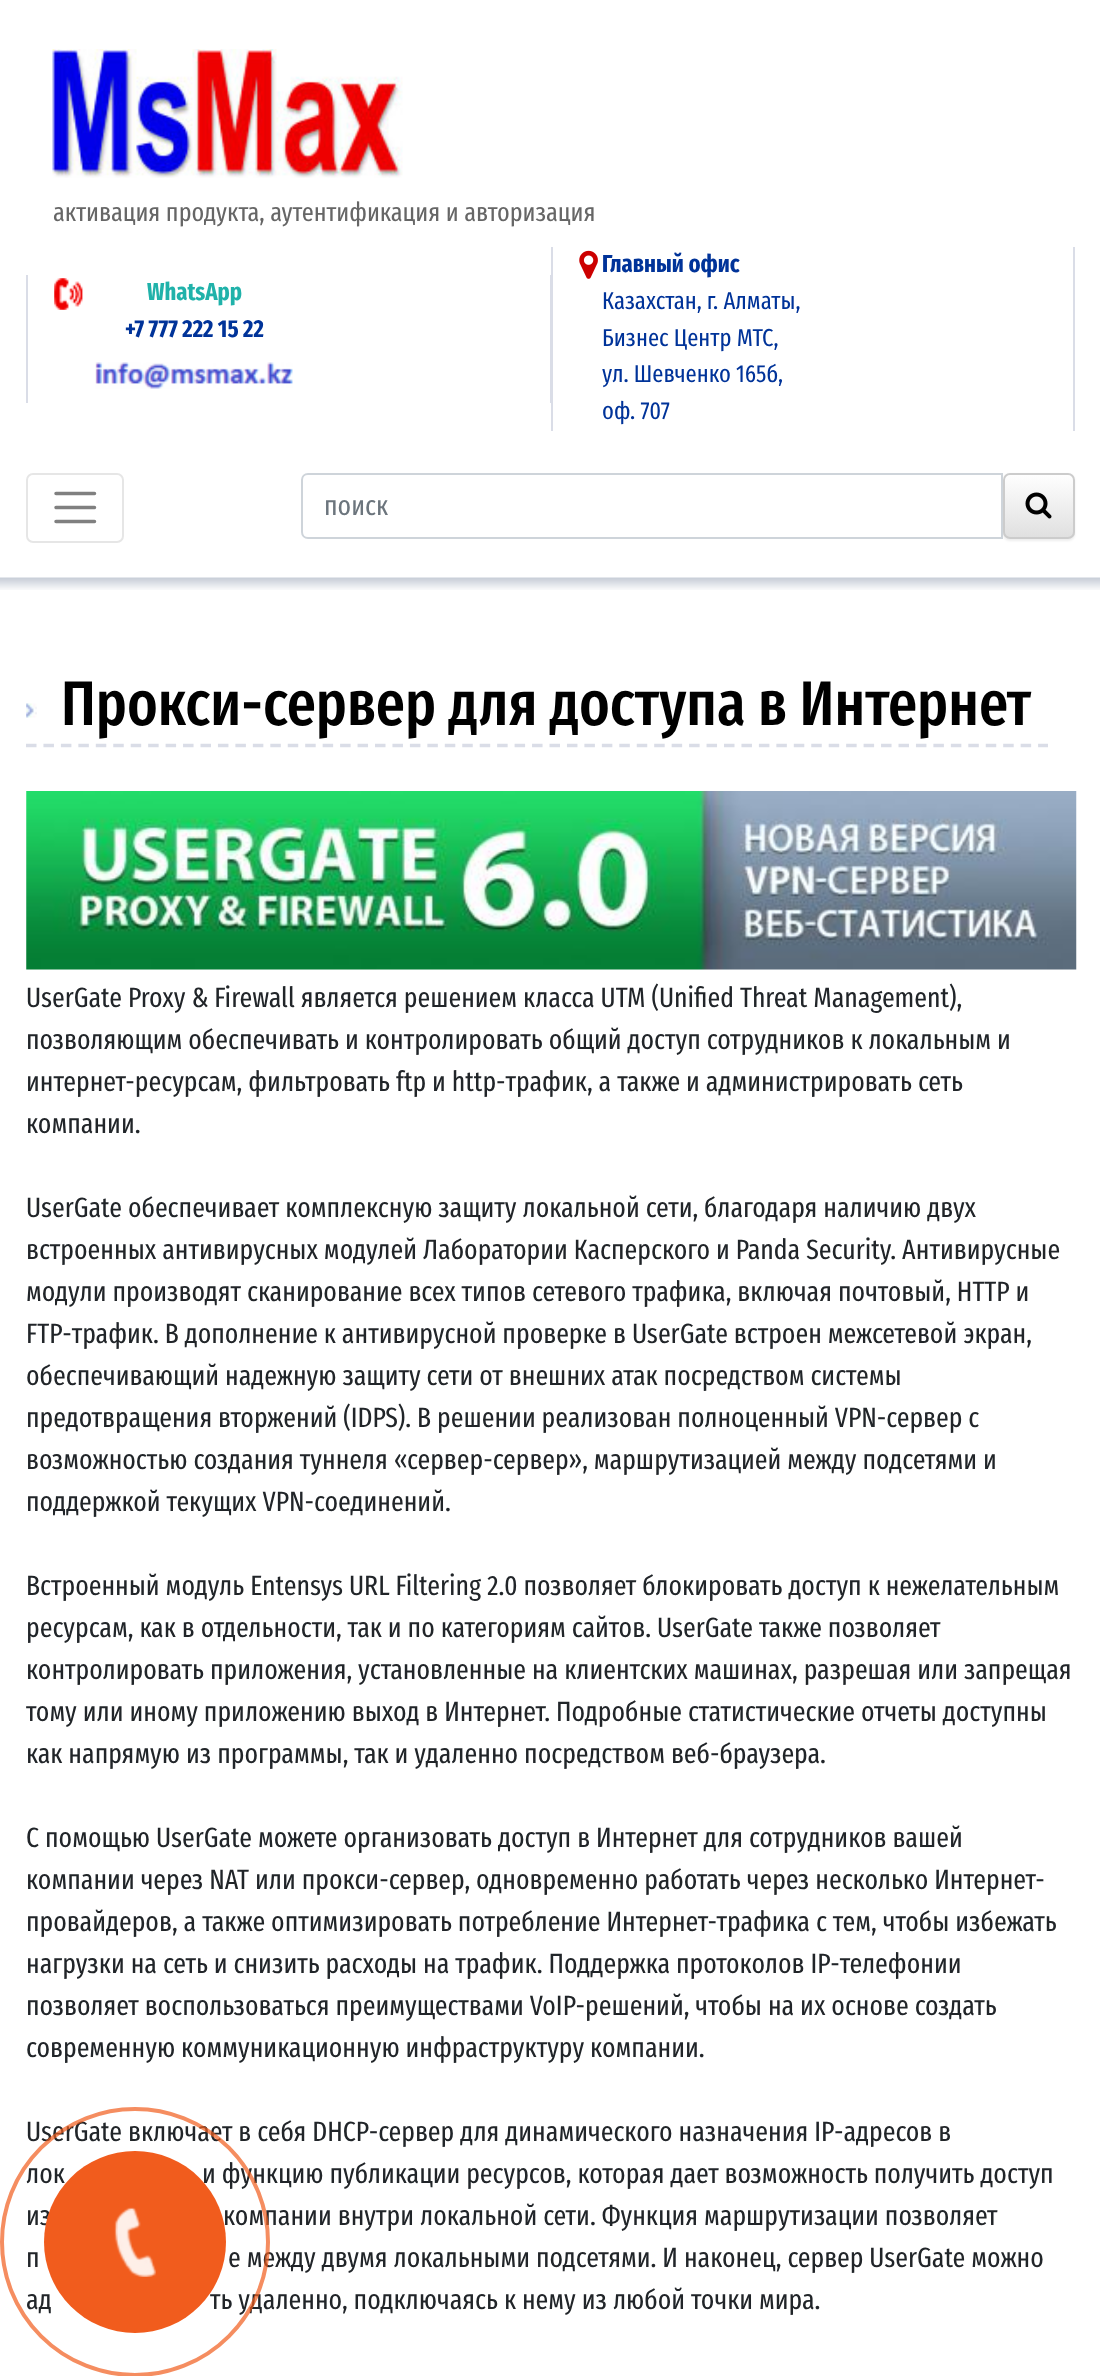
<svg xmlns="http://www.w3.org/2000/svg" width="1100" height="2376">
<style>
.a{font:26.25px Fira Sans Extra Condensed;fill:#666}
.b{font:bold 24.5px Fira Sans Extra Condensed;fill:#20b2aa}
.c{font:bold 24.5px Fira Sans Extra Condensed;fill:#039}
.d{font:24.5px Fira Sans Extra Condensed;fill:#039}
.e{font:28px Fira Sans Extra Condensed;fill:#6c757d}
.f{font:500 63px Fira Sans Extra Condensed;fill:#000}
.g{font:28px Fira Sans Extra Condensed;fill:#212529}
</style>
<defs>
<clipPath id="clip1"><rect x="1003" y="473" width="72" height="66" rx="7"/></clipPath>
<linearGradient id="g1" gradientUnits="userSpaceOnUse" x1="1039" y1="474" x2="1039" y2="537"><stop offset="0" stop-color="#fff"/><stop offset="1" stop-color="#e0e0e0"/></linearGradient>
</defs>
<rect width="100%" height="100%" fill="#fff"/>
<image href="1.png" x="52" y="49" width="351" height="129"/>
<path fill="#dadde7" d="M550 275h1v128H550z"/>
<path fill="#dadde7" d="M26 275h2v128H26z"/>
<image href="2.png" x="54" y="278" width="29" height="32"/>
<image href="3.png" x="95" y="362" width="198" height="27"/>
<path fill="#dadde7" d="M1073 247h2v184H1073z"/>
<path fill="#dadde7" d="M551 247h2v184H551z"/>
<image href="4.png" x="579" y="250" width="19" height="29"/>
<rect fill="none" stroke="#e6e6e6" stroke-width="2" x="27" y="474" width="96" height="68" rx="6"/>
<path fill="none" stroke="#808080" stroke-width="3.5" stroke-linecap="round" d="M56 493.5h38.5m-38.5 14h38.5m-38.5 14h38.5"/>
<rect fill="#00000012" filter="blur(1px)" x="1003" y="474" width="72" height="67" rx="7"/>
<path fill="none" stroke="#ced4da" stroke-width="2" d="M308 474h694v64h-694c-3.5 0-6-2.5-6-6v-52c0-3.5 2.5-6 6-6z"/>
<g clip-path="url(#clip1)">
<path fill="url(#g1)" d="M1003 474h72v63H1003z"/>
</g>
<rect fill="none" stroke="#ccc" stroke-width="2" x="1004" y="474" width="70" height="64" rx="6"/>
<image href="5.png" x="1025" y="492" width="27" height="27"/>
<image href="6.png" x="0" y="577" width="1100" height="13"/>
<image href="7.png" x="26" y="703" width="11" height="15"/>
<path fill="none" stroke="#dadde7" stroke-width="3.5" stroke-dasharray="10.5 6.95" d="M26 745.5h1022"/>
<image href="8.png" x="26" y="791" width="1051" height="179"/>
<text class="a" x="53" y="221">активация продукта, аутентификация и авторизация</text>
<text class="b" x="147" y="300">WhatsApp</text>
<text class="c" x="125" y="337">+7 777 222 15 22</text>
<text class="c" x="602" y="272">Главный офис</text>
<text class="d" x="602" y="309">Казахстан, г. Алматы,</text>
<text class="d" x="602" y="346">Бизнес Центр МТС,</text>
<text class="d" x="602" y="382">ул. Шевченко 165б,</text>
<text class="d" x="602" y="419">оф. 707</text>
<text class="e" x="324" y="515">поиск</text>
<text class="f" x="61" y="725">Прокси-сервер для доступа в Интернет</text>
<text class="g" x="26" y="1007">UserGate Proxy &amp; Firewall является решением класса UTM (Unified Threat Management),</text>
<text class="g" x="26" y="1049">позволяющим обеспечивать и контролировать общий доступ сотрудников к локальным и</text>
<text class="g" x="26" y="1091">интернет-ресурсам, фильтровать ftp и http-трафик, а также и администрировать сеть</text>
<text class="g" x="26" y="1133">компании.</text>
<text class="g" x="26" y="1217">UserGate обеспечивает комплексную защиту локальной сети, благодаря наличию двух</text>
<text class="g" x="26" y="1259">встроенных антивирусных модулей Лаборатории Касперского и Panda Security. Антивирусные</text>
<text class="g" x="26" y="1301">модули производят сканирование всех типов сетевого трафика, включая почтовый, HTTP и</text>
<text class="g" x="26" y="1343">FTP-трафик. В дополнение к антивирусной проверке в UserGate встроен межсетевой экран,</text>
<text class="g" x="26" y="1385">обеспечивающий надежную защиту сети от внешних атак посредством системы</text>
<text class="g" x="26" y="1427">предотвращения вторжений (IDPS). В решении реализован полноценный VPN-сервер с</text>
<text class="g" x="26" y="1469">возможностью создания туннеля «сервер-сервер», маршрутизацией между подсетями и</text>
<text class="g" x="26" y="1511">поддержкой текущих VPN-соединений.</text>
<text class="g" x="26" y="1595">Встроенный модуль Entensys URL Filtering 2.0 позволяет блокировать доступ к нежелательным</text>
<text class="g" x="26" y="1637">ресурсам, как в отдельности, так и по категориям сайтов. UserGate также позволяет</text>
<text class="g" x="26" y="1679">контролировать приложения, установленные на клиентских машинах, разрешая или запрещая</text>
<text class="g" x="26" y="1721">тому или иному приложению выход в Интернет. Подробные статистические отчеты доступны</text>
<text class="g" x="26" y="1763">как напрямую из программы, так и удаленно посредством веб-браузера.</text>
<text class="g" x="26" y="1847">С помощью UserGate можете организовать доступ в Интернет для сотрудников вашей</text>
<text class="g" x="26" y="1889">компании через NAT или прокси-сервер, одновременно работать через несколько Интернет-</text>
<text class="g" x="26" y="1931">провайдеров, а также оптимизировать потребление Интернет-трафика с тем, чтобы избежать</text>
<text class="g" x="26" y="1973">нагрузки на сеть и снизить расходы на трафик. Поддержка протоколов IP-телефонии</text>
<text class="g" x="26" y="2015">позволяет воспользоваться преимуществами VoIP-решений, чтобы на их основе создать</text>
<text class="g" x="26" y="2057">современную коммуникационную инфраструктуру компании.</text>
<text class="g" x="26" y="2141">UserGate включает в себя DHCP-сервер для динамического назначения IP-адресов в</text>
<text class="g" x="26" y="2183">лок</text>
<text class="g" x="202" y="2183">и функцию публикации ресурсов, которая дает возможность получить доступ</text>
<text class="g" x="26" y="2225">из</text>
<text class="g" x="223" y="2225">компании внутри локальной сети. Функция маршрутизации позволяет</text>
<text class="g" x="26" y="2267">п</text>
<text class="g" x="228" y="2267">е между двумя локальными подсетями. И наконец, сервер UserGate можно</text>
<text class="g" x="26" y="2309">ад</text>
<text class="g" x="210" y="2309">ть удаленно, подключаясь к нему из любой точки мира.</text>
<circle fill="none" stroke="#f15c1db3" stroke-width="4" cx="135" cy="2242" r="133"/>
<circle fill="#f15c1d" cx="135" cy="2242" r="91"/>
<image href="9.png" x="114" y="2207" width="42" height="70"/>
</svg>
